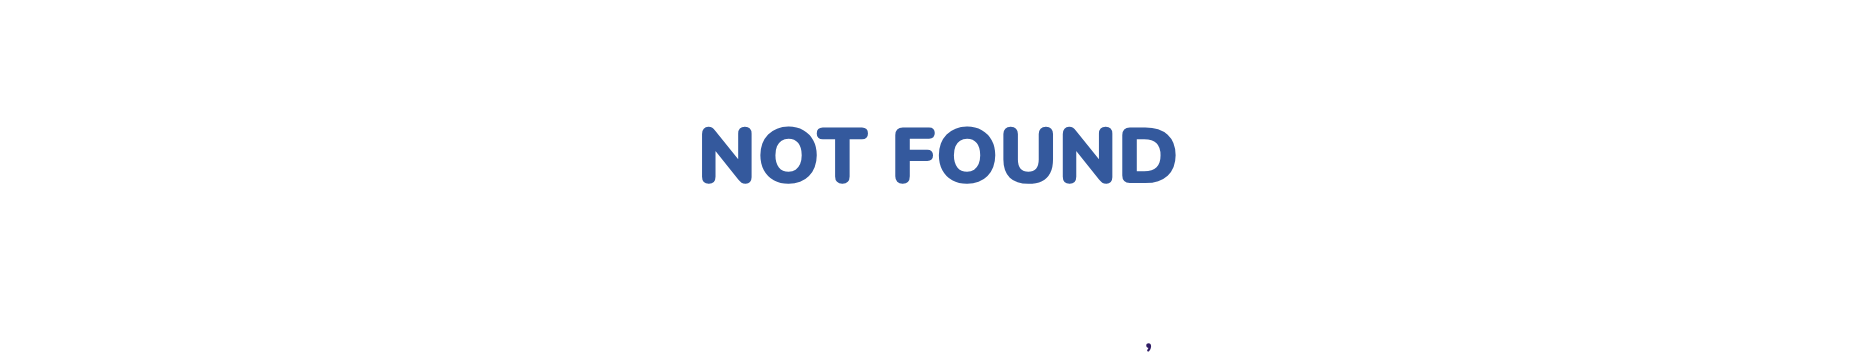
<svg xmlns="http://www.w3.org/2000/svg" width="1876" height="356">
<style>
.a{font:900 78.75px Nunito;fill:#34599d}
.b{font:800 28px Nunito;fill:#2f1c64}
</style>
<rect width="100%" height="100%" fill="#fff"/>
<text class="a" x="697" y="183">NOT FOUND</text>
<text class="b" x="1145" y="363">’</text>
</svg>
